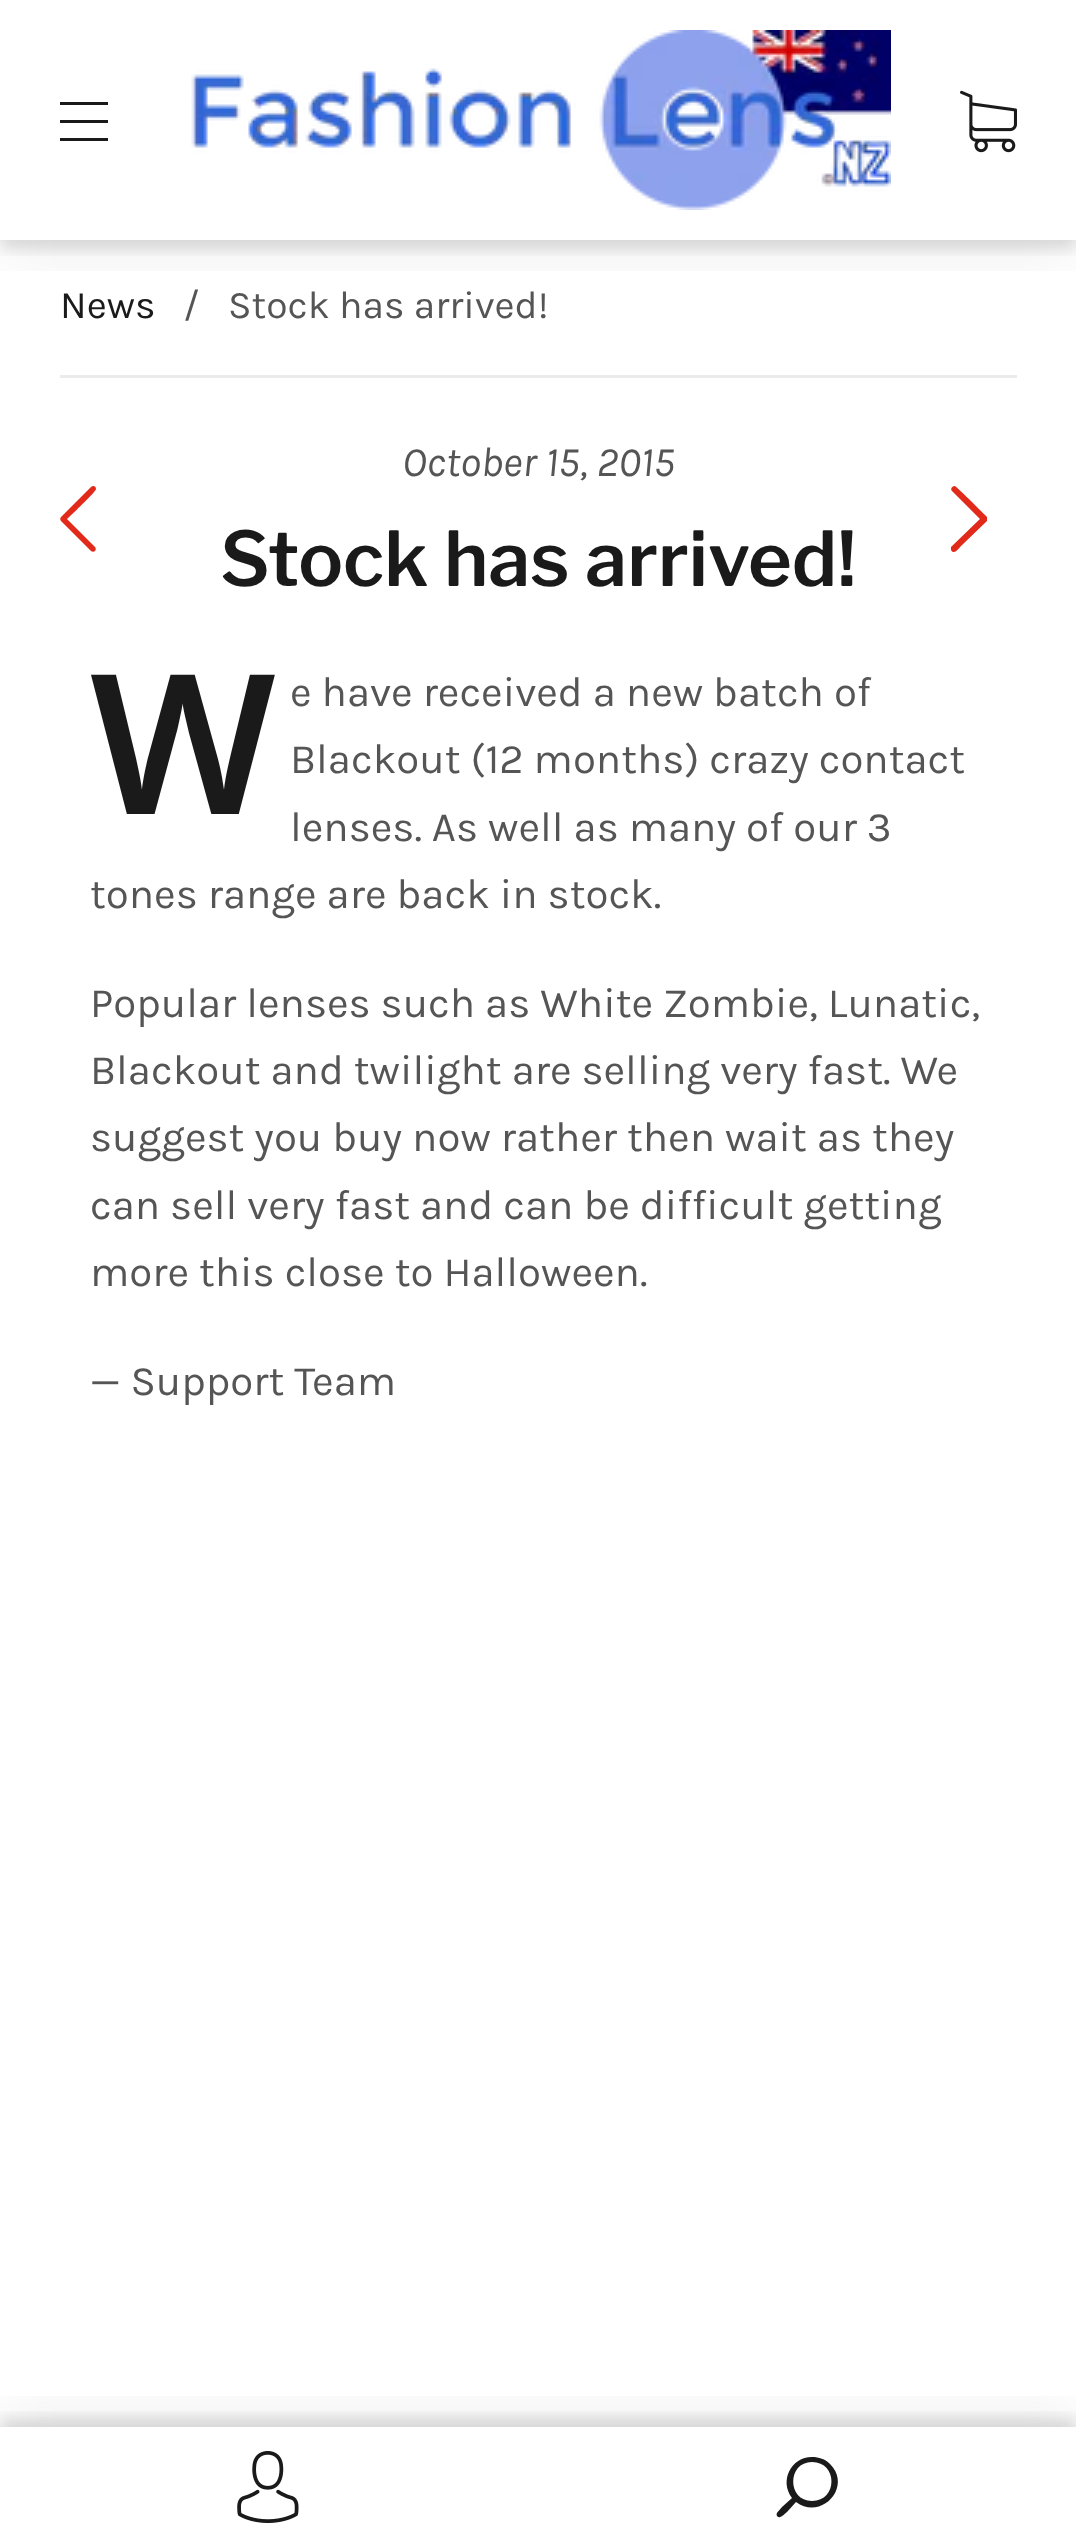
<svg xmlns="http://www.w3.org/2000/svg" width="1076" height="2545">
<style>
.a{font:39px Karla;fill:#1a1a1a}
.b{font:39px Karla;fill:#555}
.c{font:italic 42px Karla;fill:#555}
.d{font:600 75px Libre Franklin;fill:#1a1a1a}
.e{font:600 195px Noto Sans;fill:#1a1a1a}
.f{font:42px Karla;fill:#555}
</style>
<defs>
<clipPath id="clip1"><path d="M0 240h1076v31H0z"/></clipPath>
<clipPath id="clip2"><path d="M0 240h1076v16H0z"/></clipPath>
<clipPath id="clip3"><path d="M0 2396h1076v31H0z"/></clipPath>
<clipPath id="clip4"><path d="M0 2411h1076v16H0z"/></clipPath>
</defs>
<rect width="100%" height="100%" fill="#fff"/>
<g clip-path="url(#clip1)">
<path fill="#0000000f" filter="blur(30px)" d="M0 18h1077v240H0z"/>
</g>
<g clip-path="url(#clip2)">
<path fill="#0000001f" filter="blur(7.5px)" d="M0 9h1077v240H0z"/>
</g>
<path fill="#1a1a1a" d="M60 102h48v3H60z"/>
<path fill="#1a1a1a" d="M60 120h48v3H60z"/>
<path fill="#1a1a1a" d="M60 138h48v3H60z"/>
<image href="1.png" x="191" y="30" width="700" height="180"/>
<image href="2.png" x="960" y="90" width="57" height="63"/>
<path fill="#ebebeb" d="M60 375h957v3H60z"/>
<path fill="#e12a19" d="M91 487l-30 30c-1 1-1 3 0 4l30 30c1 1 3 1 4 0c1-1 1-3 0-4l-30-30v4c4-4 31-29 31-32c0-3-3-4-5-2z"/>
<path fill="#e12a19" d="M952 491l30 30v-4l-31 30v3c3 6 9-3 10-4l26-25c0-1 0-3 0-4c-2-2-31-31-32-31c-3 0-5 3-3 5z"/>
<g clip-path="url(#clip3)">
<path fill="#0000000f" filter="blur(30px)" d="M0 2409h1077v120H0z"/>
</g>
<g clip-path="url(#clip4)">
<path fill="#0000001f" filter="blur(7.5px)" d="M0 2418h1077v120H0z"/>
</g>
<image href="3.png" x="237" y="2451" width="62" height="72"/>
<path fill="#1a1a1a" d="M812 2457c-21 0-33 24-20 41l-10 9c-1 2-7 6-5 9c3 4 8-3 10-4l9-10c25 19 57-15 34-38c-5-5-11-7-18-7zm0 44c-25 0-25-39 0-39c26 0 26 39 0 39z"/>
<text class="a" x="60" y="318">News</text>
<text class="b" x="183" y="318">/</text>
<text class="b" x="228" y="318">Stock has arrived!</text>
<text class="c" x="402" y="476">October 15, 2015</text>
<text class="d" x="220" y="586">Stock has arrived!</text>
<text class="e" x="90" y="814">W</text>
<text class="f" x="290" y="706">e have received a new batch of</text>
<text class="f" x="290" y="773">Blackout (12 months) crazy contact</text>
<text class="f" x="290" y="841">lenses. As well as many of our 3</text>
<text class="f" x="90" y="908">tones range are back in stock.</text>
<text class="f" x="90" y="1017">Popular lenses such as White Zombie, Lunatic,</text>
<text class="f" x="90" y="1084">Blackout and twilight are selling very fast. We</text>
<text class="f" x="90" y="1151">suggest you buy now rather then wait as they</text>
<text class="f" x="90" y="1219">can sell very fast and can be difficult getting</text>
<text class="f" x="90" y="1286">more this close to Halloween.</text>
<text class="f" x="90" y="1395">— Support Team</text>
</svg>
